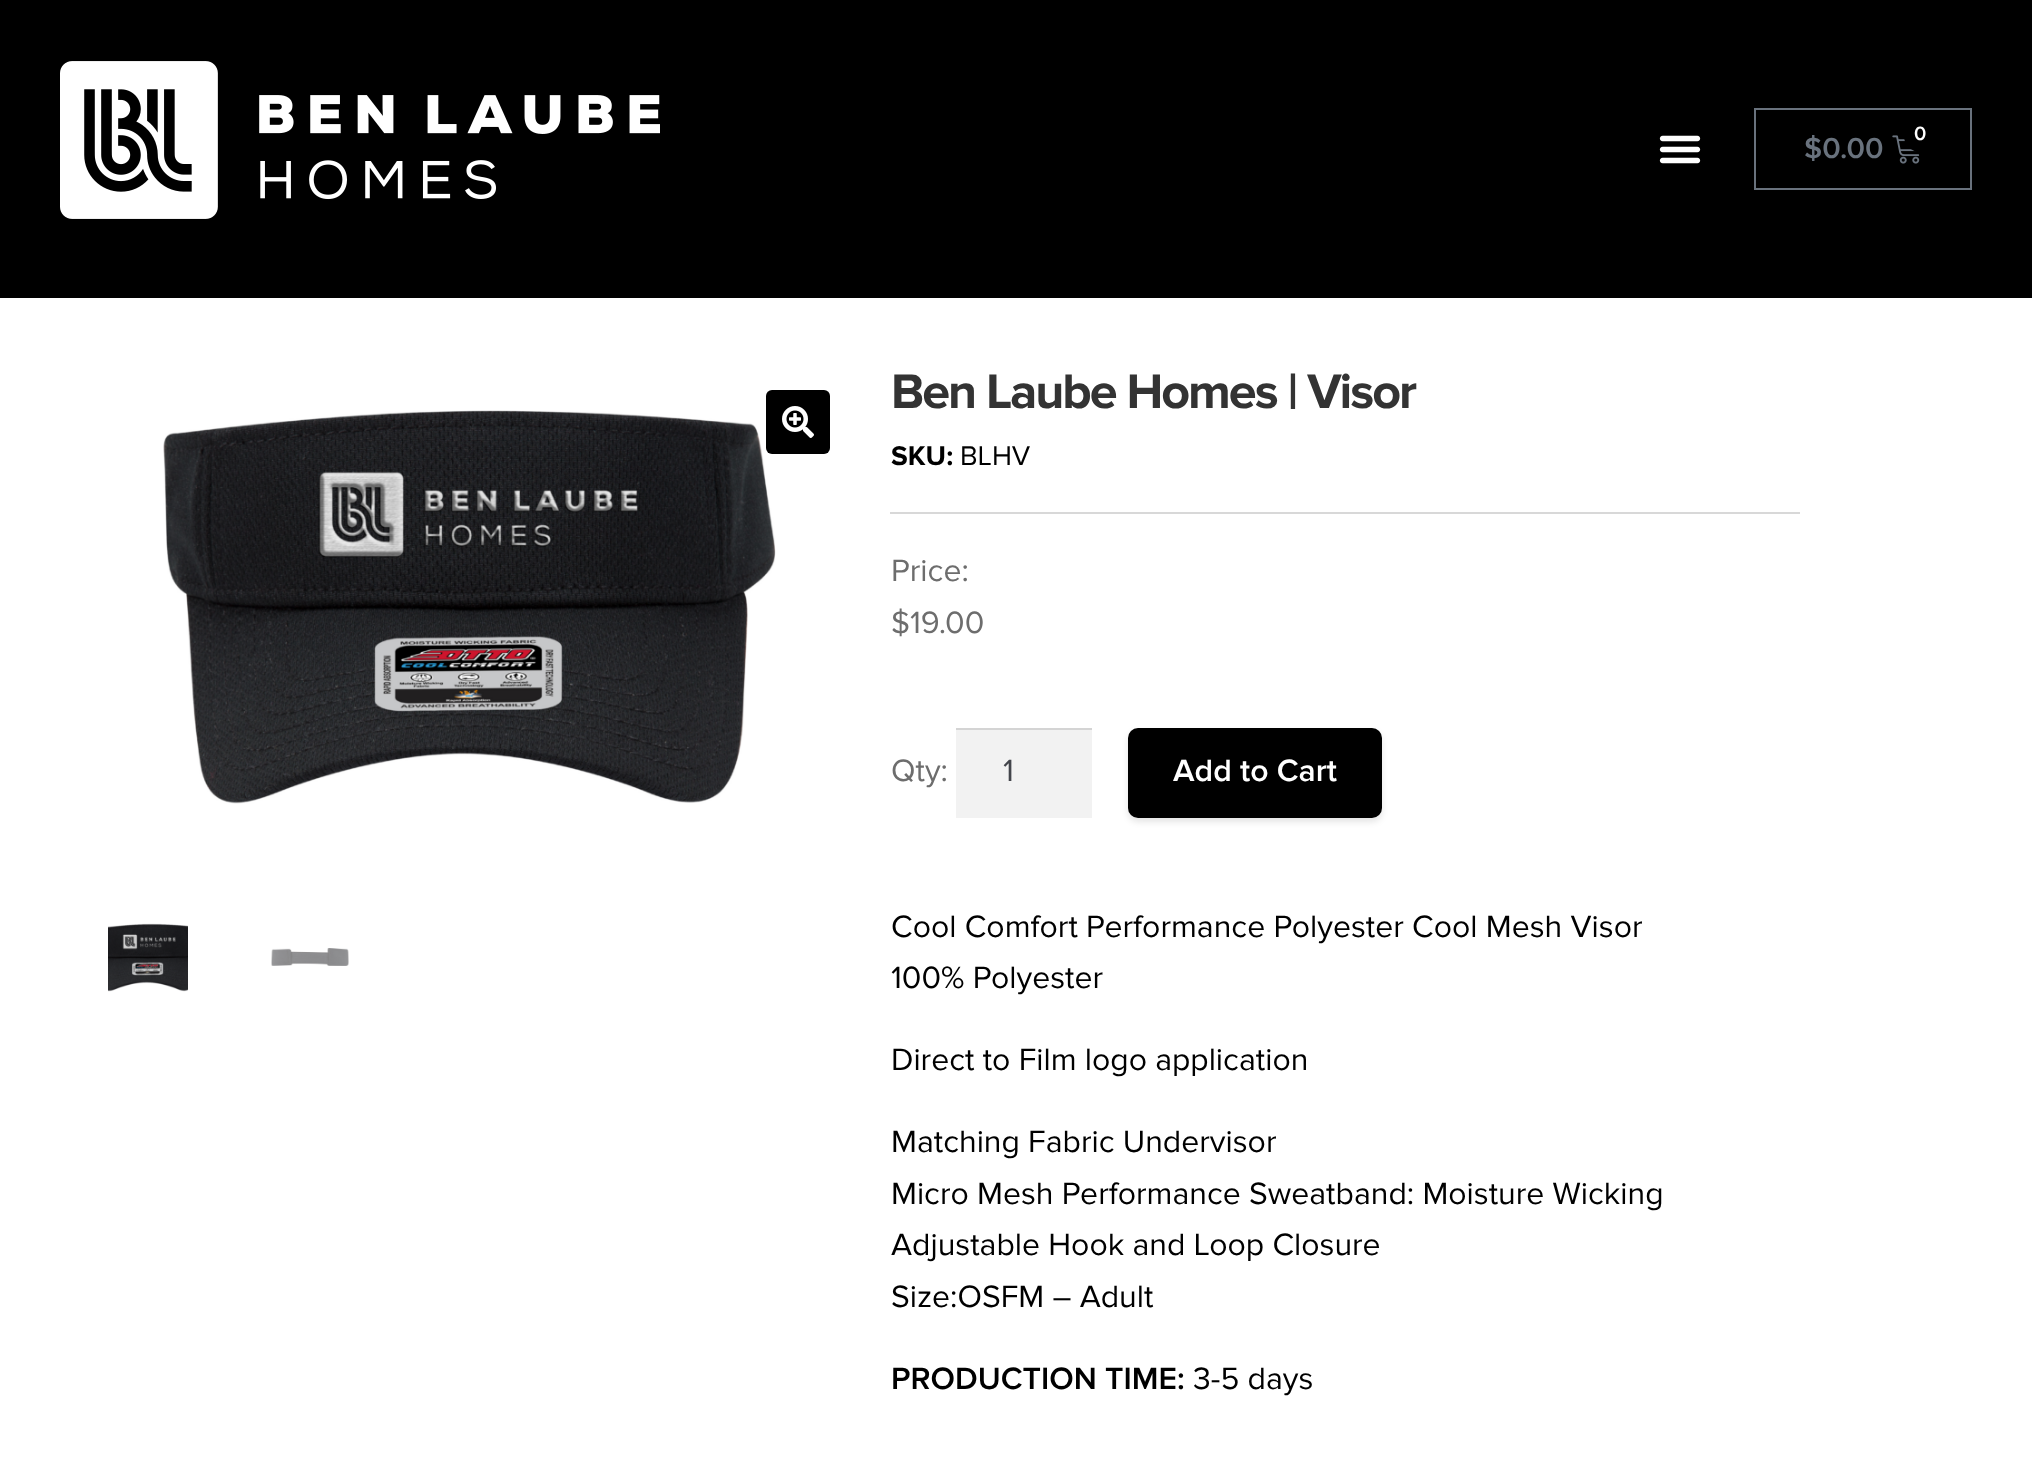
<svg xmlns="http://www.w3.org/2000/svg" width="2032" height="1473">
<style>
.a{font:600 30px Proxima Nova;fill:#69727d}
.b{font:600 20px Proxima Nova;fill:#fff}
.c{font:bold 50.25px Proxima Nova;letter-spacing:-2px;fill:#333}
.d{font:bold 28px Proxima Nova;fill:#000}
.e{font:28px Proxima Nova;fill:#000}
.f{font:32px Proxima Nova;fill:#6d6d6d}
.g{font:32px Proxima Nova;fill:#43454b}
.h{font:600 32px Proxima Nova;fill:#fff}
.i{font:32px Proxima Nova;fill:#000}
.j{font:600 32px Proxima Nova;fill:#000}
</style>
<rect width="100%" height="100%" fill="#fff"/>
<path fill="#000" d="M0 0h2032v298H0z"/>
<image href="1.png" x="60" y="61" width="600" height="158"/>
<image href="2.png" x="1659" y="135" width="42" height="29"/>
<path fill="none" stroke="#69727d" stroke-width="2" d="M1755 109h216v80H1755z"/>
<image href="3.png" x="1892" y="135" width="28" height="29"/>
<circle fill="#000" cx="1920" cy="136" r="16"/>
<image href="4.png" x="163" y="410" width="613" height="394"/>
<rect fill="#000" x="766" y="390" width="64" height="64" rx="6"/>
<image href="5.png" x="782" y="406" width="32" height="32"/>
<image href="6.png" x="108" y="923" width="80" height="69"/>
<image href="7.png" x="271" y="948" width="78" height="18"/>
<path fill="#d8d8d8" d="M890 512h910v2H890z"/>
<path fill="#f2f2f2" d="M956 730h136v88H956z"/>
<path fill="#d4d4d4" d="M956 728h136v2H956z"/>
<rect fill="#0000001a" filter="blur(3px)" x="1128" y="732" width="254" height="90" rx="10"/>
<rect fill="#000" x="1128" y="728" width="254" height="90" rx="10"/>
<text class="a" x="1804" y="158">$0.00</text>
<text class="b" x="1914" y="140">0</text>
<text class="c" x="891" y="408">Ben Laube Homes | Visor</text>
<text class="d" x="891" y="465">SKU:</text>
<text class="e" x="960" y="465">BLHV</text>
<text class="f" x="891" y="581">Price:</text>
<text class="f" x="891" y="633">$19.00</text>
<text class="f" x="891" y="781">Qty:</text>
<text class="g" x="1003" y="781">1</text>
<text class="h" x="1173" y="781">Add to Cart</text>
<text class="i" x="891" y="937">Cool Comfort Performance Polyester Cool Mesh Visor</text>
<text class="i" x="891" y="988">100% Polyester</text>
<text class="i" x="891" y="1070">Direct to Film logo application</text>
<text class="i" x="891" y="1152">Matching Fabric Undervisor</text>
<text class="i" x="891" y="1204">Micro Mesh Performance Sweatband: Moisture Wicking</text>
<text class="i" x="891" y="1255">Adjustable Hook and Loop Closure</text>
<text class="i" x="891" y="1307">Size:OSFM – Adult</text>
<text class="j" x="891" y="1389">PRODUCTION TIME:</text>
<text class="i" x="1193" y="1389">3-5 days</text>
</svg>
